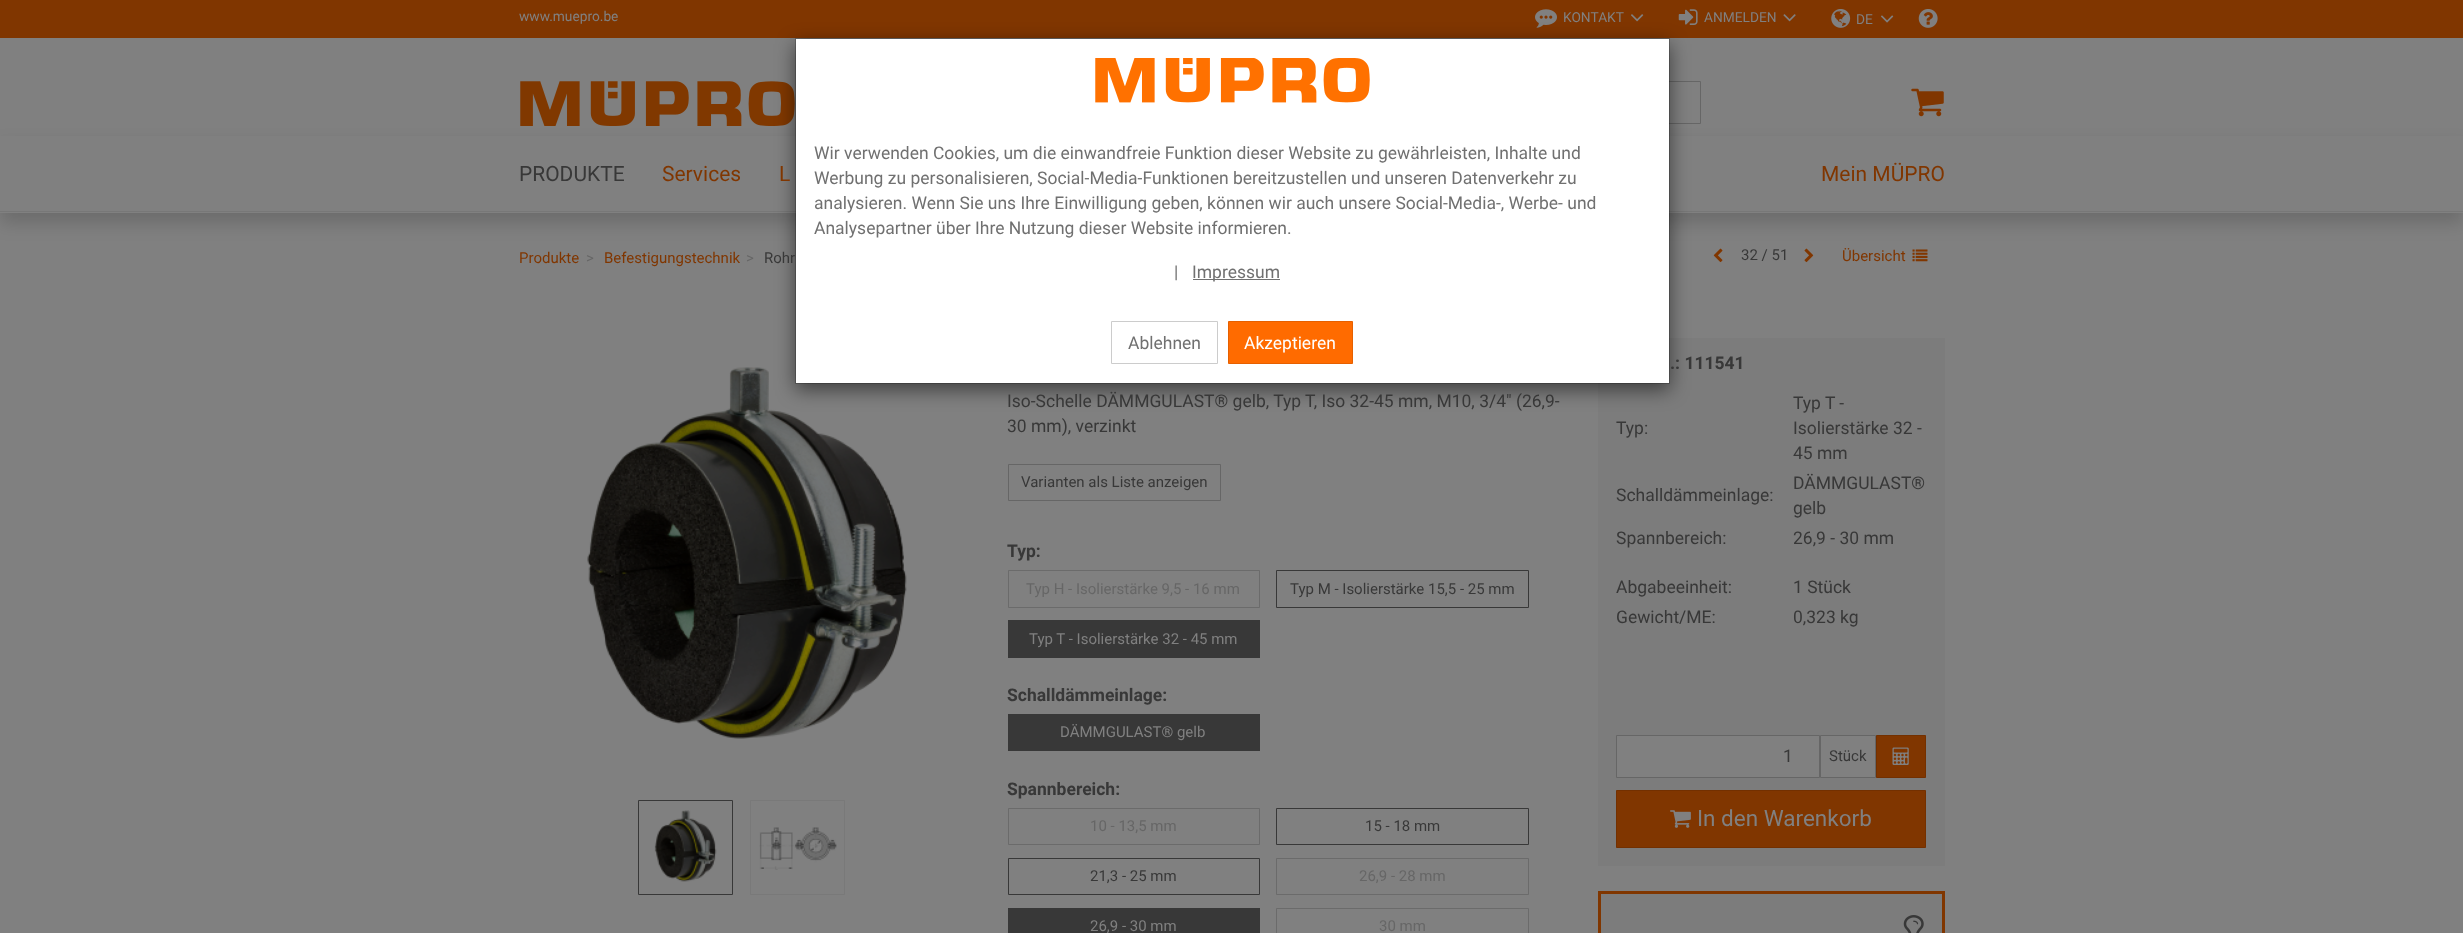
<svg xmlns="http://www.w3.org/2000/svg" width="2463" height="933">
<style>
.a{font:13.75px Roboto;fill:#808080}
.b{font:21px Roboto;fill:#383838}
.c{font:21px Roboto;fill:#803600}
.d{font:17.5px Roboto;fill:#707070}
.e{font:17.5px Roboto;fill:#fff}
.f{font:15px Roboto;fill:#803600}
.g{font:15px Roboto;fill:#666}
.h{font:15px Roboto;fill:#383838}
.i{font:17.5px Roboto;fill:#383838}
.j{font:bold 17.5px Roboto;fill:#383838}
.k{font:15px Roboto;fill:#808080}
.l{font:22.5px Roboto;fill:#808080}
</style>
<defs>
<clipPath id="clip1"><path d="M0 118h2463v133h-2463zm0 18h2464v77h-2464z" clip-rule="evenodd"/></clipPath>
</defs>
<rect width="100%" height="100%" fill="#808080"/>
<path fill="#803600" d="M0 0h2463v38H0z"/>
<image href="1.png" x="1535" y="9" width="22" height="19"/>
<image href="2.png" x="1631" y="14" width="13" height="8"/>
<image href="3.png" x="1678" y="9" width="20" height="16"/>
<image href="4.png" x="1783" y="14" width="13" height="8"/>
<image href="5.png" x="1831" y="9" width="20" height="19"/>
<image href="6.png" x="1881" y="15" width="13" height="8"/>
<image href="7.png" x="1918" y="9" width="20" height="19"/>
<image href="11.png" x="1713" y="248" width="10" height="15"/>
<image href="12.png" x="1804" y="248" width="10" height="15"/>
<image href="13.png" x="1912" y="249" width="16" height="13"/>
<g clip-path="url(#clip1)">
<path fill="#00000029" filter="blur(9px)" d="M0 146h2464v77H0z"/>
</g>
<image href="8.png" x="520" y="81" width="275" height="45"/>
<path fill="none" stroke="#666" d="M933.5 81.5h767v42H933.5z"/>
<image href="9.png" x="1911" y="88" width="33" height="29"/>
<path fill="#808080f5" d="M0 212h2463v1H0z"/>
<path fill="#777" d="M0 211h2463v1H0z"/>
<image href="14.png" x="587" y="367" width="320" height="372"/>
<path fill="#7c7c7c" d="M1598 338h347v528H1598z"/>
<path fill="#00000080" filter="blur(9.5px)" d="M795 44h875v346H795z"/>
<path fill="#fff" d="M796 39h873v344H796z"/>
<path fill="none" stroke="#00000033" d="M795.5 38.5h874v345H795.5z"/>
<image href="10.png" x="1095" y="58" width="275" height="45"/>
<path fill="#707070" d="M1193 279h87v1H1193z"/>
<path fill="none" stroke="#ccc" d="M1111.5 321.5h106v42H1111.5z"/>
<path fill="#ff6b00" stroke="#e66000" d="M1228.5 321.5h124v42H1228.5z"/>
<path fill="none" stroke="#383838" d="M638.5 800.5h94v94H638.5z"/>
<image href="15.png" x="654" y="810" width="63" height="72"/>
<path fill="none" stroke="#797979" d="M750.5 800.5h94v94H750.5z"/>
<image href="16.png" x="759" y="827" width="78" height="43"/>
<path fill="none" stroke="#666" d="M1008.5 464.5h212v36H1008.5z"/>
<path fill="none" stroke="#6b6b6b" d="M1008.5 570.5h251v37H1008.5z"/>
<path fill="none" stroke="#383838" d="M1276.5 570.5h252v37H1276.5z"/>
<path fill="#383838" d="M1008 620h252v38H1008z"/>
<path fill="#383838" d="M1008 714h252v37H1008z"/>
<path fill="none" stroke="#6b6b6b" d="M1008.5 808.5h251v36H1008.5z"/>
<path fill="none" stroke="#383838" d="M1276.5 808.5h252v36H1276.5z"/>
<path fill="none" stroke="#383838" d="M1008.5 858.5h251v36H1008.5z"/>
<path fill="none" stroke="#6b6b6b" d="M1276.5 858.5h252v36H1276.5z"/>
<path fill="#383838" d="M1008 908h252v25H1008z"/>
<path fill="none" stroke="#6b6b6b" d="M1276.5 908.5h252v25H1276.5z"/>
<path fill="#808080" stroke="#666" d="M1616.5 735.5h203v42H1616.5z"/>
<path fill="#808080" stroke="#666" d="M1820.5 735.5h55v42H1820.5z"/>
<path fill="#803600" stroke="#733000" d="M1876.5 735.5h49v42H1876.5z"/>
<image href="17.png" x="1892" y="747" width="17" height="18"/>
<path fill="#803600" stroke="#733000" d="M1616.5 790.5h309v57H1616.5z"/>
<image href="18.png" x="1670" y="810" width="21" height="18"/>
<path fill="#7c7c7c" stroke="#803600" stroke-width="3" d="M1599.5 892.5h344v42H1599.5z"/>
<image href="19.png" x="1903" y="915" width="21" height="18"/>
<text class="a" x="519" y="21">www.muepro.be</text>
<text class="a" x="1563" y="22">KONTAKT</text>
<text class="a" x="1704" y="22">ANMELDEN</text>
<text class="a" x="1856" y="24">DE</text>
<text class="b" x="519" y="181">PRODUKTE</text>
<text class="c" x="662" y="181">Services</text>
<text class="c" x="779" y="181">L</text>
<text class="c" x="1821" y="181">Mein MÜPRO</text>
<text class="d" x="814" y="159">Wir verwenden Cookies, um die einwandfreie Funktion dieser Website zu gewährleisten, Inhalte und</text>
<text class="d" x="814" y="184">Werbung zu personalisieren, Social-Media-Funktionen bereitzustellen und unseren Datenverkehr zu</text>
<text class="d" x="814" y="209">analysieren. Wenn Sie uns Ihre Einwilligung geben, können wir auch unsere Social-Media-, Werbe- und</text>
<text class="d" x="814" y="234">Analysepartner über Ihre Nutzung dieser Website informieren.</text>
<text class="d" x="1174" y="278">|</text>
<text class="d" x="1192" y="278">Impressum</text>
<text class="d" x="1128" y="349">Ablehnen</text>
<text class="e" x="1244" y="349">Akzeptieren</text>
<text class="f" x="519" y="263">Produkte</text>
<text class="g" x="586" y="263">&gt;</text>
<text class="f" x="604" y="263">Befestigungstechnik</text>
<text class="g" x="746" y="263">&gt;</text>
<text class="h" x="764" y="263">Rohr</text>
<text class="h" x="1741" y="260">32 / 51</text>
<text class="f" x="1842" y="261">Übersicht</text>
<text class="i" x="1007" y="407">Iso-Schelle DÄMMGULAST® gelb, Typ T, Iso 32-45 mm, M10, 3/4" (26,9-</text>
<text class="i" x="1007" y="432">30 mm), verzinkt</text>
<text class="h" x="1021" y="487">Varianten als Liste anzeigen</text>
<text class="j" x="1007" y="557">Typ:</text>
<text class="g" x="1026" y="594">Typ H - Isolierstärke 9,5 - 16 mm</text>
<text class="h" x="1290" y="594">Typ M - Isolierstärke 15,5 - 25 mm</text>
<text class="k" x="1029" y="644">Typ T - Isolierstärke 32 - 45 mm</text>
<text class="j" x="1007" y="701">Schalldämmeinlage:</text>
<text class="k" x="1060" y="737">DÄMMGULAST® gelb</text>
<text class="j" x="1007" y="795">Spannbereich:</text>
<text class="g" x="1090" y="831">10 - 13,5 mm</text>
<text class="h" x="1365" y="831">15 - 18 mm</text>
<text class="h" x="1090" y="881">21,3 - 25 mm</text>
<text class="g" x="1359" y="881">26,9 - 28 mm</text>
<text class="k" x="1090" y="931">26,9 - 30 mm</text>
<text class="g" x="1379" y="931">30 mm</text>
<text class="j" x="1670" y="369">.: 111541</text>
<text class="i" x="1616" y="434">Typ:</text>
<text class="i" x="1793" y="409">Typ T -</text>
<text class="i" x="1793" y="434">Isolierstärke 32 -</text>
<text class="i" x="1793" y="459">45 mm</text>
<text class="i" x="1616" y="501">Schalldämmeinlage:</text>
<text class="i" x="1793" y="489">DÄMMGULAST®</text>
<text class="i" x="1793" y="514">gelb</text>
<text class="i" x="1616" y="544">Spannbereich:</text>
<text class="i" x="1793" y="544">26,9 - 30 mm</text>
<text class="i" x="1616" y="593">Abgabeeinheit:</text>
<text class="i" x="1793" y="593">1 Stück</text>
<text class="i" x="1616" y="623">Gewicht/ME:</text>
<text class="i" x="1793" y="623">0,323 kg</text>
<text class="i" x="1783" y="762">1</text>
<text class="h" x="1829" y="761">Stück</text>
<text class="l" x="1697" y="826">In den Warenkorb</text>
</svg>
